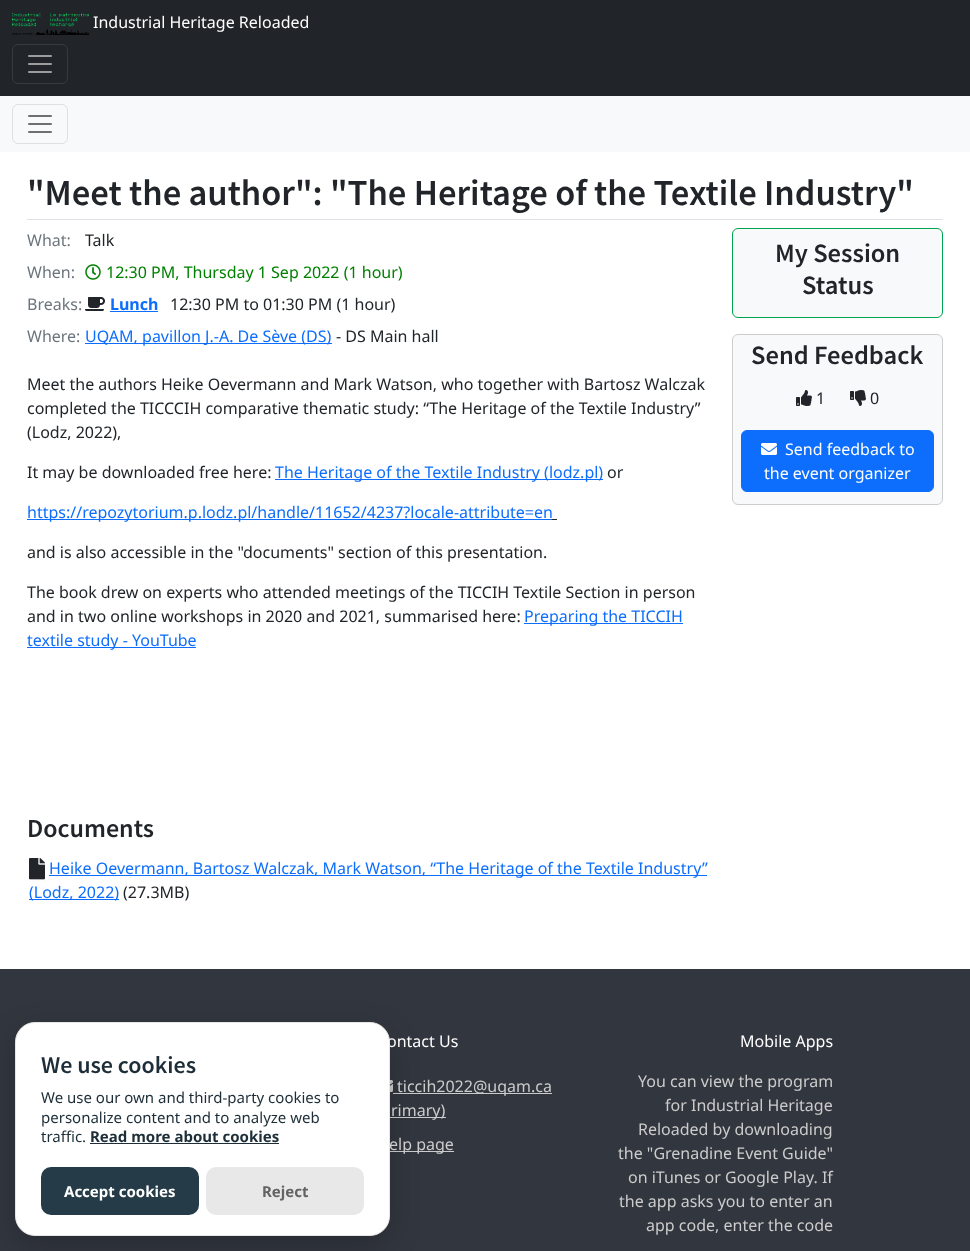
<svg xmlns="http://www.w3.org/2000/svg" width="970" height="1251">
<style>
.a{font:16px Noto Sans;fill:#fff}
.b{font:600 36.55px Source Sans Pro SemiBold;fill:#212529}
.c{font:16px Noto Sans;fill:#6c757d}
.d{font:16px Noto Sans;fill:#212529}
.e{font:16px Noto Sans;fill:#008000}
.f{font:bold 16px Noto Sans;fill:#0d6efd}
.g{font:16px Noto Sans;fill:#0d6efd}
.h{font:600 26px Source Sans Pro SemiBold;fill:#212529}
.i{font:600 26.5px Source Sans Pro SemiBold;fill:#212529}
.j{font:16px Noto Sans;fill:#ccc}
.k{font:bold 15px Noto Sans;fill:#636363}
.l{font:bold 15px Noto Sans;fill:#fff}
.m{font:bold 15px Noto Sans;fill:#1d2e38}
.n{font:15px Noto Sans;fill:#1d2e38}
.o{font:600 24px Source Sans Pro SemiBold;fill:#1d2e38}
</style>
<rect width="100%" height="100%" fill="#fff"/>
<path fill="#212529" d="M0 0h970v96H0z"/>
<image href="1.png" x="12" y="12" width="77" height="23"/>
<rect fill="none" stroke="#373b3e" x="12.5" y="44.5" width="55" height="39" rx="5.5"/>
<image href="2.png" x="28" y="55" width="24" height="18"/>
<path fill="#f8f9fa" d="M0 96h970v56H0z"/>
<rect fill="none" stroke="#dfe0e1" x="12.5" y="104.5" width="55" height="39" rx="5.5"/>
<image href="3.png" x="28" y="115" width="24" height="18"/>
<path fill="#dee2e6" d="M27 219h916v1H27z"/>
<image href="4.png" x="85" y="264" width="16" height="16"/>
<image href="5.png" x="85" y="297" width="20" height="14"/>
<path fill="#0d6efd" d="M110 311h48v1H110z"/>
<path fill="#0d6efd" d="M85 343h247v1H85z"/>
<path fill="#0d6efd" d="M275 479h328v1H275z"/>
<path fill="#0d6efd" d="M27 519h525v1H27z"/>
<path fill="#212529" d="M552 519h5v1H552z"/>
<path fill="#0d6efd" d="M524 623h159v1H524z"/>
<path fill="#0d6efd" d="M27 647h169v1H27z"/>
<image href="6.png" x="29" y="858" width="16" height="22"/>
<path fill="#0d6efd" d="M49 875h658v1H49z"/>
<path fill="#0d6efd" d="M29 899h90v1H29z"/>
<rect fill="#f8f9fa" stroke="#00a551" x="732.5" y="228.5" width="210" height="89" rx="5.5"/>
<rect fill="#f8f9fa" stroke="#cccdce" x="732.5" y="334.5" width="210" height="170" rx="5.5"/>
<image href="7.png" x="796" y="390" width="16" height="16"/>
<image href="8.png" x="850" y="390" width="16" height="16"/>
<rect fill="#0d6efd" stroke="#0d6efd" x="741.5" y="430.5" width="192" height="61" rx="5.5"/>
<image href="9.png" x="761" y="443" width="16" height="12"/>
<path fill="#32363e" d="M0 969h970v282H0z"/>
<image href="10.png" x="390" y="1080" width="3" height="12"/>
<path fill="#ccc" d="M393 1093h159v1H393z"/>
<path fill="#ccc" d="M390 1117h56v1H390z"/>
<path fill="#ccc" d="M390 1151h64v1H390z"/>
<rect fill="#02020333" filter="blur(15px)" x="15" y="1032" width="375" height="214" rx="20"/>
<text class="a" x="93" y="28">Industrial Heritage Reloaded</text>
<text class="b" x="27" y="205">"Meet the author": "The Heritage of the Textile Industry"</text>
<text class="c" x="27" y="246">What:</text>
<text class="d" x="85" y="246">Talk</text>
<text class="c" x="27" y="278">When:</text>
<text class="e" x="106" y="278">12:30 PM, Thursday 1 Sep 2022 (1 hour)</text>
<text class="c" x="27" y="310">Breaks:</text>
<text class="f" x="110" y="310">Lunch</text>
<text class="d" x="170" y="310">12:30 PM to 01:30 PM (1 hour)</text>
<text class="c" x="27" y="342">Where:</text>
<text class="g" x="85" y="342">UQAM, pavillon J.-A. De Sève (DS)</text>
<text class="d" x="336" y="342">- DS Main hall</text>
<text class="d" x="27" y="390">Meet the authors Heike Oevermann and Mark Watson, who together with Bartosz Walczak</text>
<text class="d" x="27" y="414">completed the TICCCIH comparative thematic study: “The Heritage of the Textile Industry”</text>
<text class="d" x="27" y="438">(Lodz, 2022),</text>
<text class="d" x="27" y="478">It may be downloaded free here:</text>
<text class="g" x="275" y="478">The Heritage of the Textile Industry (lodz.pl)</text>
<text class="d" x="607" y="478">or</text>
<text class="g" x="27" y="518">https://repozytorium.p.lodz.pl/handle/11652/4237?locale-attribute=en</text>
<text class="d" x="27" y="558">and is also accessible in the "documents" section of this presentation.</text>
<text class="d" x="27" y="598">The book drew on experts who attended meetings of the TICCIH Textile Section in person</text>
<text class="d" x="27" y="622">and in two online workshops in 2020 and 2021, summarised here:</text>
<text class="g" x="524" y="622">Preparing the TICCIH</text>
<text class="g" x="27" y="646">textile study - YouTube</text>
<text class="h" x="27" y="837">Documents</text>
<text class="g" x="49" y="874">Heike Oevermann, Bartosz Walczak, Mark Watson, “The Heritage of the Textile Industry”</text>
<text class="g" x="29" y="898">(Lodz, 2022)</text>
<text class="d" x="123" y="898">(27.3MB)</text>
<text class="i" x="775" y="262">My Session</text>
<text class="i" x="802" y="294">Status</text>
<text class="i" x="751" y="364">Send Feedback</text>
<text class="d" x="816" y="404">1</text>
<text class="d" x="870" y="404">0</text>
<text class="a" x="785" y="455">Send feedback to</text>
<text class="a" x="764" y="479">the event organizer</text>
<text class="a" x="387" y="1047">ontact Us</text>
<text class="j" x="397" y="1092">ticcih2022@uqam.ca</text>
<text class="j" x="391" y="1116">rimary)</text>
<text class="j" x="389" y="1150">elp page</text>
<rect fill="#fff" stroke="#e6e6e6" x="15.5" y="1022.5" width="374" height="213" rx="19.5"/>
<rect fill="#e8e8e8" x="206" y="1167" width="158" height="48" rx="10"/>
<text class="k" x="262" y="1197">Reject</text>
<rect fill="#253b48" x="41" y="1167" width="158" height="48" rx="10"/>
<text class="l" x="64" y="1197">Accept cookies</text>
<text class="m" x="90" y="1142">Read more about cookies</text>
<path fill="#1d2e38" d="M90 1143h189v1H90z"/>
<text class="n" x="41" y="1142">traffic.</text>
<text class="n" x="41" y="1123">personalize content and to analyze web</text>
<text class="n" x="41" y="1103">We use our own and third-party cookies to</text>
<text class="o" x="41" y="1073">We use cookies</text>
<text class="a" x="740" y="1047">Mobile Apps</text>
<text class="j" x="638" y="1087">You can view the program</text>
<text class="j" x="665" y="1111">for Industrial Heritage</text>
<text class="j" x="638" y="1135">Reloaded by downloading</text>
<text class="j" x="618" y="1159">the "Grenadine Event Guide"</text>
<text class="j" x="628" y="1183">on iTunes or Google Play. If</text>
<text class="j" x="619" y="1207">the app asks you to enter an</text>
<text class="j" x="646" y="1231">app code, enter the code</text>
</svg>
